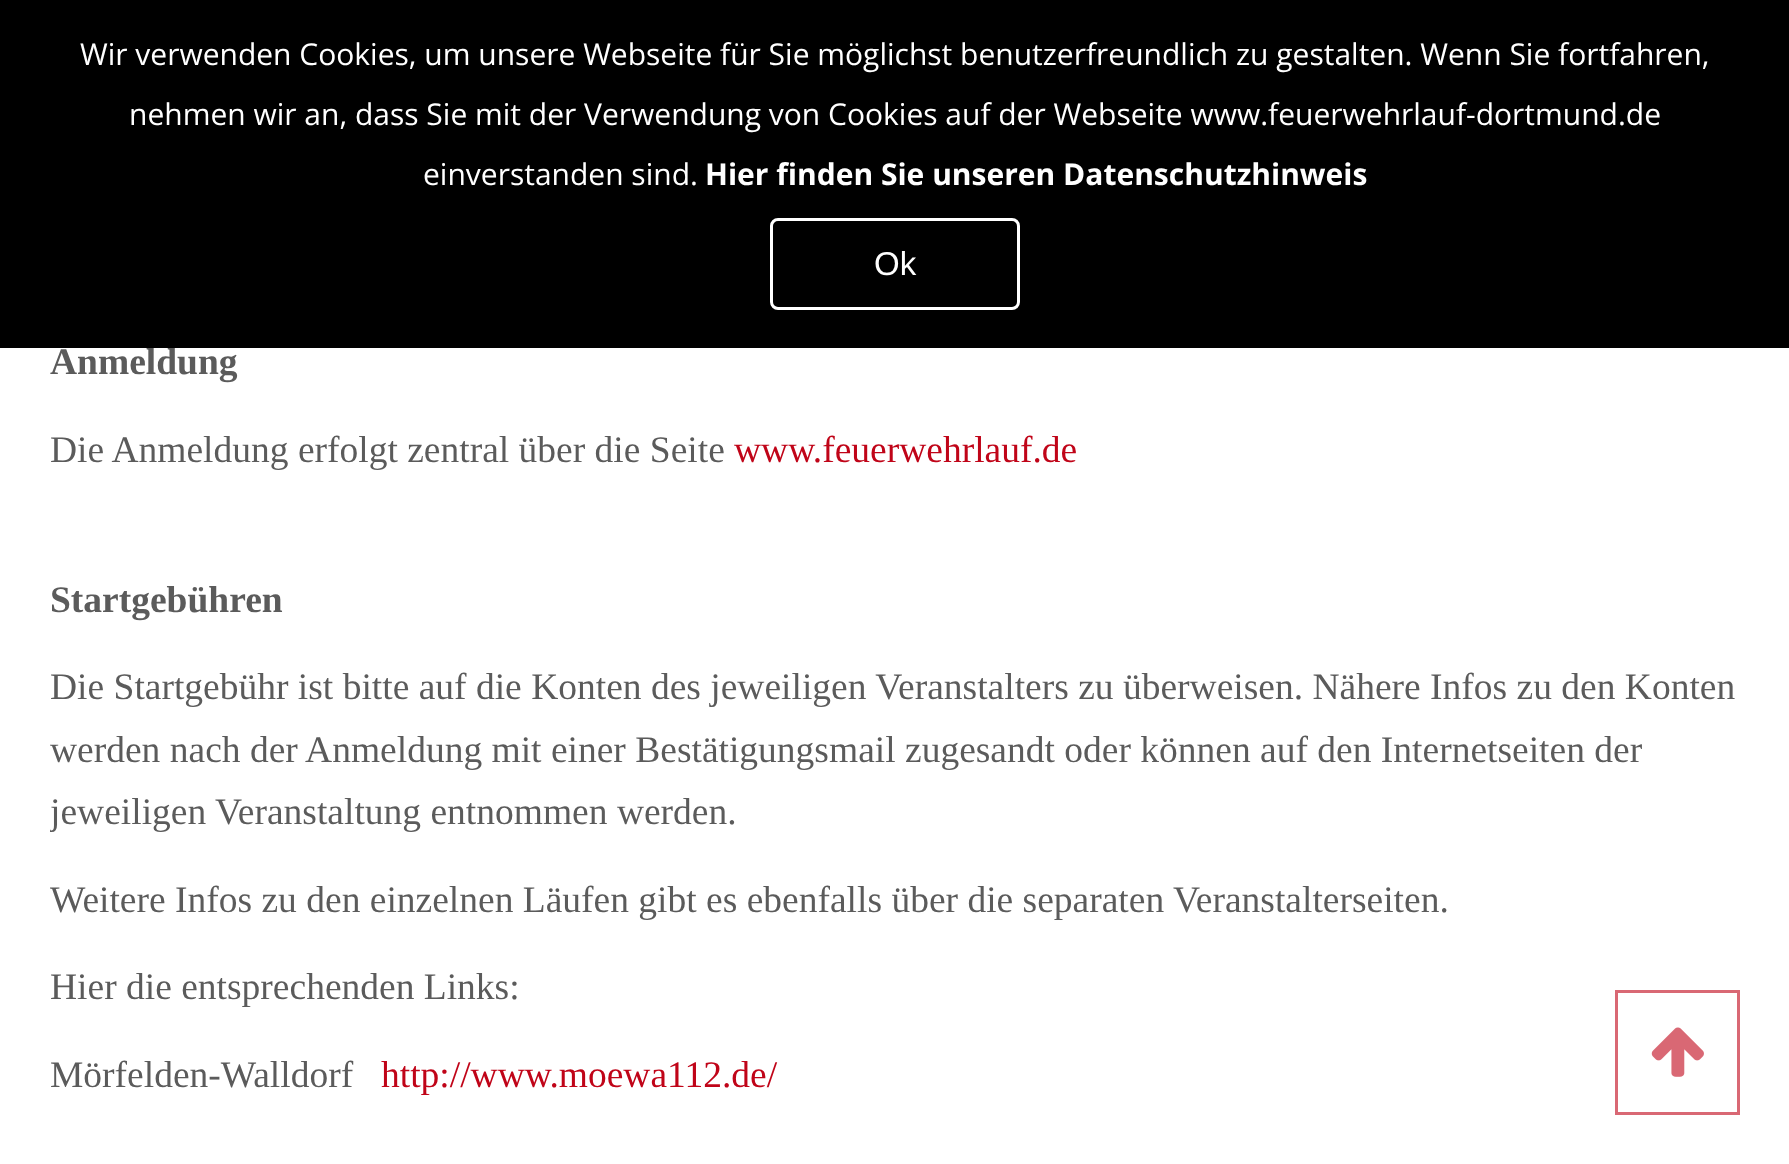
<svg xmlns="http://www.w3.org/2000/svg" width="1789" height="1164">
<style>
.a{font:30px Open Sans;fill:#fff}
.b{font:bold 30px Open Sans;fill:#fff}
.c{font:33px Liberation Sans;fill:#fff}
.d{font:bold 37.5px Liberation Serif;fill:#5b5b5b}
.e{font:37.5px Liberation Serif;fill:#5b5b5b}
.f{font:37.5px Liberation Serif;fill:#c00418}
</style>
<defs>
<clipPath id="clip1"><path d="M50 0h1690v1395H50z"/></clipPath>
</defs>
<rect width="100%" height="100%" fill="#fff"/>
<path fill="#000" d="M0 0h1789v348H0z"/>
<rect fill="none" stroke="#fff" stroke-width="3" x="771.5" y="219.5" width="247" height="89" rx="6.5"/>
<path fill="none" stroke="#d96874" stroke-width="3" d="M1616.5 991.5h122v122H1616.5z"/>
<image href="1.png" x="1651" y="1027" width="53" height="50"/>
<text class="a" x="80" y="65">Wir verwenden Cookies, um unsere Webseite für Sie möglichst benutzerfreundlich zu gestalten. Wenn Sie fortfahren,</text>
<text class="a" x="129" y="125">nehmen wir an, dass Sie mit der Verwendung von Cookies auf der Webseite www.feuerwehrlauf-dortmund.de</text>
<text class="a" x="423" y="185">einverstanden sind.</text>
<text class="b" x="705" y="185">Hier finden Sie unseren Datenschutzhinweis</text>
<text class="c" x="874" y="275">Ok</text>
<text class="d" x="50" y="374">Anmeldung</text>
<text class="e" x="50" y="462">Die Anmeldung erfolgt zentral über die Seite</text>
<text class="f" x="734" y="462">www.feuerwehrlauf.de</text>
<text class="d" x="50" y="612">Startgebühren</text>
<text class="e" x="50" y="699">Die Startgebühr ist bitte auf die Konten des jeweiligen Veranstalters zu überweisen. Nähere Infos zu den Konten</text>
<text class="e" x="50" y="762">werden nach der Anmeldung mit einer Bestätigungsmail zugesandt oder können auf den Internetseiten der</text>
<g clip-path="url(#clip1)">
<text class="e" x="50" y="824">jeweiligen Veranstaltung entnommen werden.</text>
</g>
<text class="e" x="50" y="912">Weitere Infos zu den einzelnen Läufen gibt es ebenfalls über die separaten Veranstalterseiten.</text>
<text class="e" x="50" y="999">Hier die entsprechenden Links:</text>
<text class="e" x="50" y="1087">Mörfelden-Walldorf</text>
<text class="f" x="381" y="1087">http://www.moewa112.de/</text>
</svg>
